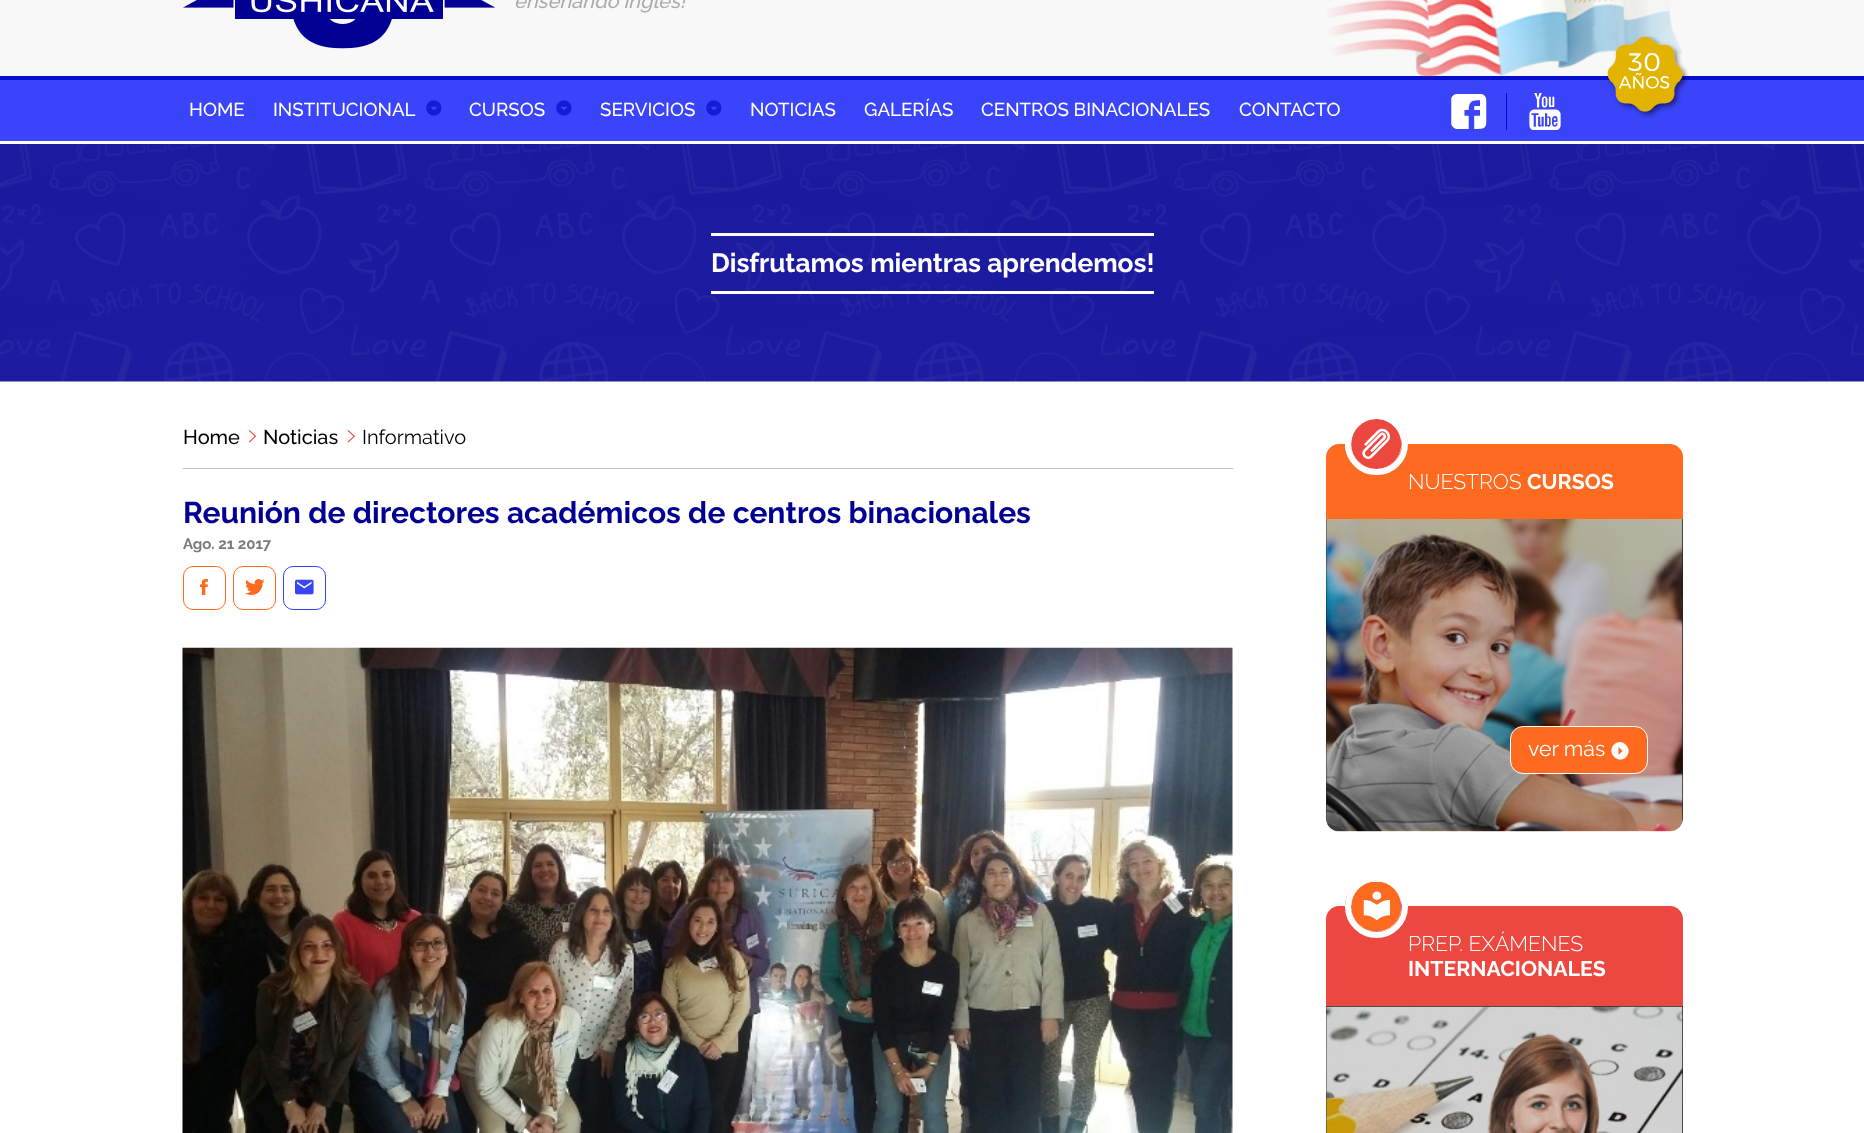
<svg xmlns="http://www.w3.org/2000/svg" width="1864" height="1133">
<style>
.a{font:italic 500 20px Raleway;fill:#aaa}
.b{font:500 18.75px Raleway;fill:#fff}
.c{font:bold 26.25px Raleway;fill:#fff}
.d{font:500 20px Raleway;fill:#000}
.e{font:20px Raleway;fill:#000}
.f{font:bold 30px Raleway;fill:#020094}
.g{font:bold 15px Raleway;fill:#7b7b7b}
.h{font:300 21.25px Raleway;fill:#fff}
.i{font:bold 21.25px Raleway;fill:#fff}
.j{font:21.25px Raleway;fill:#fff}
</style>
<rect width="100%" height="100%" fill="#fff"/>
<path fill="#f8f8f8" d="M0 0h1864v76H0z"/>
<image href="1.png" x="183" y="0" width="312" height="49"/>
<path fill="#050fc9" d="M0 76h1864v4H0z"/>
<image href="2.png" x="1327" y="0" width="356" height="77"/>
<path fill="#3a44fa" d="M0 80h1864v61H0z"/>
<image href="3.png" x="1607" y="36" width="82" height="82"/>
<image href="4.png" x="426" y="100" width="16" height="16"/>
<image href="4.png" x="556" y="100" width="16" height="16"/>
<image href="4.png" x="706" y="100" width="16" height="16"/>
<path fill="#050fc9" d="M1506 93h1v37H1506z"/>
<image href="5.png" x="1451" y="94" width="36" height="35"/>
<image href="6.png" x="1529" y="93" width="32" height="37"/>
<image href="7.png" x="0" y="144" width="1864" height="238"/>
<path fill="#fff" d="M711 233h443v3H711z"/>
<path fill="#fff" d="M711 291h443v3H711z"/>
<image href="8.png" x="248" y="430" width="9" height="13"/>
<image href="9.png" x="347" y="430" width="8" height="13"/>
<path fill="#c2bec5" d="M183 468h1050v1H183z"/>
<rect fill="none" stroke="#fd6a20" x="183.5" y="566.5" width="42" height="43" rx="9.5"/>
<image href="10.png" x="200" y="579" width="8" height="16"/>
<rect fill="none" stroke="#fd6a20" x="233.5" y="566.5" width="42" height="43" rx="9.5"/>
<image href="11.png" x="245" y="579" width="20" height="16"/>
<rect fill="none" stroke="#3a44fa" x="283.5" y="566.5" width="42" height="43" rx="9.5"/>
<image href="12.png" x="295" y="579" width="19" height="16"/>
<image href="13.png" x="182" y="647" width="1051" height="486"/>
<path fill="#fd6a20" d="M1339 444h331c7 0 13 6 13 13v62h-357v-62c0-7 6-13 13-13z"/>
<image href="14.png" x="1345" y="419" width="63" height="56"/>
<rect fill="none" stroke="#fff" stroke-width="6" x="1348" y="416" width="57" height="56" rx="28"/>
<path fill="#222" d="M1326 519h357v299c0 7-6 13-13 13h-331c-7 0-13-6-13-13z"/>
<image href="15.png" x="1326" y="519" width="357" height="313"/>
<rect fill="#fd6a20" stroke="#fff" x="1510.5" y="726.5" width="137" height="47" rx="12.5"/>
<path fill="#fff" d="M1626 757c-8 8-20-4.5-12-12.5c8-8 20 4.5 12 12.5zm-7.5-2l4-4l-4-4z"/>
<path fill="#ec483f" d="M1339 906h331c7 0 13 6 13 13v87h-357v-87c0-7 6-13 13-13z"/>
<image href="16.png" x="1345" y="882" width="63" height="56"/>
<circle fill="none" stroke="#fff" stroke-width="6" cx="1376.5" cy="906.5" r="28.5"/>
<path fill="#222" d="M1326 1006h357v127H1326z"/>
<image href="17.png" x="1326" y="1006" width="357" height="127"/>
<text class="a" x="514" y="8">enseñando inglés!</text>
<text class="b" x="189" y="116">HOME</text>
<text class="b" x="273" y="116">INSTITUCIONAL</text>
<text class="b" x="469" y="116">CURSOS</text>
<text class="b" x="600" y="116">SERVICIOS</text>
<text class="b" x="750" y="116">NOTICIAS</text>
<text class="b" x="864" y="116">GALERÍAS</text>
<text class="b" x="981" y="116">CENTROS BINACIONALES</text>
<text class="b" x="1239" y="116">CONTACTO</text>
<text class="c" x="711" y="272">Disfrutamos mientras aprendemos!</text>
<text class="d" x="183" y="444">Home</text>
<text class="d" x="263" y="444">Noticias</text>
<text class="e" x="362" y="444">Informativo</text>
<text class="f" x="183" y="523">Reunión de directores académicos de centros binacionales</text>
<text class="g" x="183" y="549">Ago. 21 2017</text>
<text class="h" x="1408" y="489">NUESTROS</text>
<text class="i" x="1527" y="489">CURSOS</text>
<text class="j" x="1528" y="756">ver más</text>
<text class="h" x="1408" y="951">PREP. EXÁMENES</text>
<text class="i" x="1408" y="976">INTERNACIONALES</text>
</svg>
